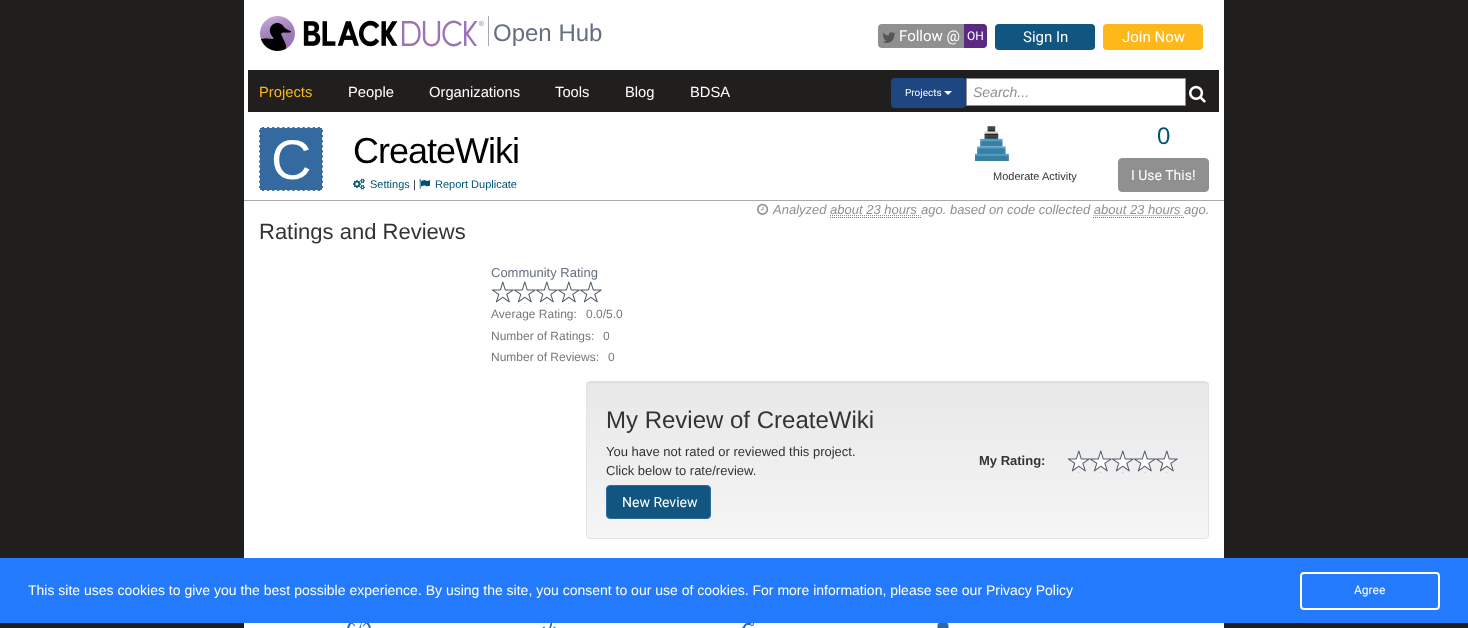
<svg xmlns="http://www.w3.org/2000/svg" width="1468" height="628">
<style>
.a{font:24px Liberation Sans;fill:#646e81}
.b{font:15px Roboto;fill:#fff}
.c{font:12px Roboto;fill:#fff}
.d{font:14.75px Liberation Sans;fill:#fdb71a}
.e{font:14.75px Liberation Sans;fill:#fff}
.f{font:10px Roboto;fill:#fff}
.g{font:italic 14px Liberation Sans;fill:#8f908f}
.h{font:56px Liberation Sans;fill:#fff}
.i{font:36px Liberation Sans;letter-spacing:-1px;fill:#000}
.j{font:11px Liberation Sans;fill:#005272}
.k{font:11px Liberation Sans;fill:#333}
.l{font:24px Liberation Sans;fill:#005272}
.m{font:14px Roboto;fill:#fff}
.n{font:italic 13px Liberation Sans;fill:#8f908f}
.o{font:22px Liberation Sans;fill:#333}
.p{font:13px Liberation Sans;fill:#646e81}
.q{font:12px Liberation Sans;fill:#777}
.r{font:24px Liberation Sans;fill:#333}
.s{font:13px Liberation Sans;fill:#333}
.t{font:bold 13px Liberation Sans;fill:#333}
.u{font:14px Liberation Sans;fill:#fff}
</style>
<defs>
<clipPath id="clip1"><rect x="586" y="381" width="623" height="158" rx="4"/></clipPath>
<linearGradient id="g1" gradientUnits="userSpaceOnUse" x1="898" y1="382" x2="898" y2="538"><stop offset="0" stop-color="#e8e8e8"/><stop offset="1" stop-color="#f5f5f5"/></linearGradient>
</defs>
<rect width="100%" height="100%" fill="#211e1e"/>
<path fill="#fff" d="M244 0h980v628H244z"/>
<image href="1.png" x="260" y="16" width="224" height="35"/>
<path fill="#a2a8b3" d="M488 16h1v30H488z"/>
<rect fill="#8f908f" x="878" y="24" width="109" height="24" rx="4"/>
<image href="2.png" x="882" y="32" width="14" height="11"/>
<path fill="#5a2a82" d="M964 24h19c2 0 4 2 4 4v16c0 2-2 4-4 4h-19z"/>
<rect fill="#105681" x="995" y="24" width="100" height="26" rx="4"/>
<rect fill="#ffb819" x="1103" y="24" width="100" height="26" rx="4"/>
<path fill="#211e1e" d="M248 70h971v42H248z"/>
<rect fill="#1e4681" x="891" y="78" width="75" height="30" rx="4"/>
<path fill="#fff" d="M944 91h8l-4 4z"/>
<path fill="#fff" stroke="#8f908f" d="M966.5 78.5h219v27H966.5z"/>
<image href="3.png" x="1189" y="85" width="17" height="18"/>
<path fill="#356aa0" d="M259 127h64v64H259z"/>
<path fill="none" stroke="#fff" stroke-dasharray="3 2.08" d="M259 127.5h64"/>
<path fill="none" stroke="#fff" stroke-dasharray="3 2.08" d="M322.5 127v64"/>
<path fill="none" stroke="#fff" stroke-dasharray="3 2.08" d="M259 190.5h64"/>
<path fill="none" stroke="#fff" stroke-dasharray="3 2.08" d="M259.5 127v64"/>
<image href="4.png" x="353" y="178" width="12" height="12"/>
<image href="5.png" x="419" y="179" width="12" height="10"/>
<image href="6.png" x="975" y="126" width="34" height="35"/>
<rect fill="#8f908f" stroke="#8f908f" x="1118.5" y="158.5" width="90" height="33" rx="3.5"/>
<path fill="#aaa" d="M244 200h980v1H244z"/>
<image href="7.png" x="757" y="203" width="12" height="12"/>
<path fill="none" stroke="#8f908f" stroke-dasharray="1 1" d="M830 215.5h90.5"/>
<path fill="none" stroke="#8f908f" stroke-dasharray="1 1" d="M1093.5 215.5h90"/>
<path fill="none" stroke="#777" stroke-dasharray="1 1" d="M830 217.5h91"/>
<path fill="none" stroke="#777" stroke-dasharray="1 1" d="M1093 217.5h91"/>
<image href="8.png" x="491" y="281" width="111" height="23"/>
<g clip-path="url(#clip1)">
<path fill="url(#g1)" d="M586 382h623v156H586z"/>
</g>
<path fill="#dcdcdc" d="M590 383h615c2 0 3 1 3 3v-1c0-2-1-3-3-3h-615c-2 0-3 1-3 3v1c0-2 1-3 3-3z"/>
<rect fill="none" stroke="#e3e3e3" x="586.5" y="381.5" width="622" height="157" rx="3.5"/>
<image href="9.png" x="1067" y="450" width="111" height="23"/>
<rect fill="#105681" stroke="#2e6da4" x="606.5" y="485.5" width="104" height="33" rx="3.5"/>
<image href="10.png" x="347" y="623" width="24" height="5"/>
<image href="11.png" x="542" y="623" width="14" height="5"/>
<image href="12.png" x="742" y="623" width="12" height="5"/>
<image href="13.png" x="937" y="623" width="12" height="5"/>
<path fill="#237afc" d="M0 558h1468v65H0z"/>
<rect fill="none" stroke="#fff" stroke-width="2" x="1301" y="573" width="138" height="36" rx="3"/>
<text class="a" x="493" y="41">Open Hub</text>
<text class="b" x="899" y="41">Follow @</text>
<text class="c" x="967" y="40">OH</text>
<text class="b" x="1023" y="42">Sign In</text>
<text class="b" x="1122" y="42">Join Now</text>
<text class="d" x="259" y="97">Projects</text>
<text class="e" x="348" y="97">People</text>
<text class="e" x="429" y="97">Organizations</text>
<text class="e" x="555" y="97">Tools</text>
<text class="e" x="625" y="97">Blog</text>
<text class="e" x="690" y="97">BDSA</text>
<text class="f" x="905" y="96">Projects</text>
<text class="g" x="973" y="97">Search...</text>
<text class="h" x="271" y="179">C</text>
<text class="i" x="353" y="163">CreateWiki</text>
<text class="j" x="370" y="188">Settings</text>
<text class="k" x="413" y="188">|</text>
<text class="j" x="435" y="188">Report Duplicate</text>
<text class="k" x="993" y="180">Moderate Activity</text>
<text class="l" x="1157" y="144">0</text>
<text class="m" x="1131" y="180">I Use This!</text>
<text class="n" x="773" y="214">Analyzed about 23 hours</text>
<text class="n" x="921" y="214">ago. based on code collected about 23 hours ago.</text>
<text class="o" x="259" y="239">Ratings and Reviews</text>
<text class="p" x="491" y="277">Community Rating</text>
<text class="q" x="491" y="318">Average Rating:</text>
<text class="q" x="586" y="318">0.0/5.0</text>
<text class="q" x="491" y="340">Number of Ratings:</text>
<text class="q" x="603" y="340">0</text>
<text class="q" x="491" y="361">Number of Reviews:</text>
<text class="q" x="608" y="361">0</text>
<text class="r" x="606" y="428">My Review of CreateWiki</text>
<text class="s" x="606" y="456">You have not rated or reviewed this project.</text>
<text class="s" x="606" y="475">Click below to rate/review.</text>
<text class="t" x="979" y="465">My Rating:</text>
<text class="m" x="622" y="507">New Review</text>
<text class="u" x="28" y="595">This site uses cookies to give you the best possible experience. By using the site, you consent to our use of cookies. For more information, please see our Privacy Policy</text>
<text class="c" x="1354" y="594">Agree</text>
</svg>
